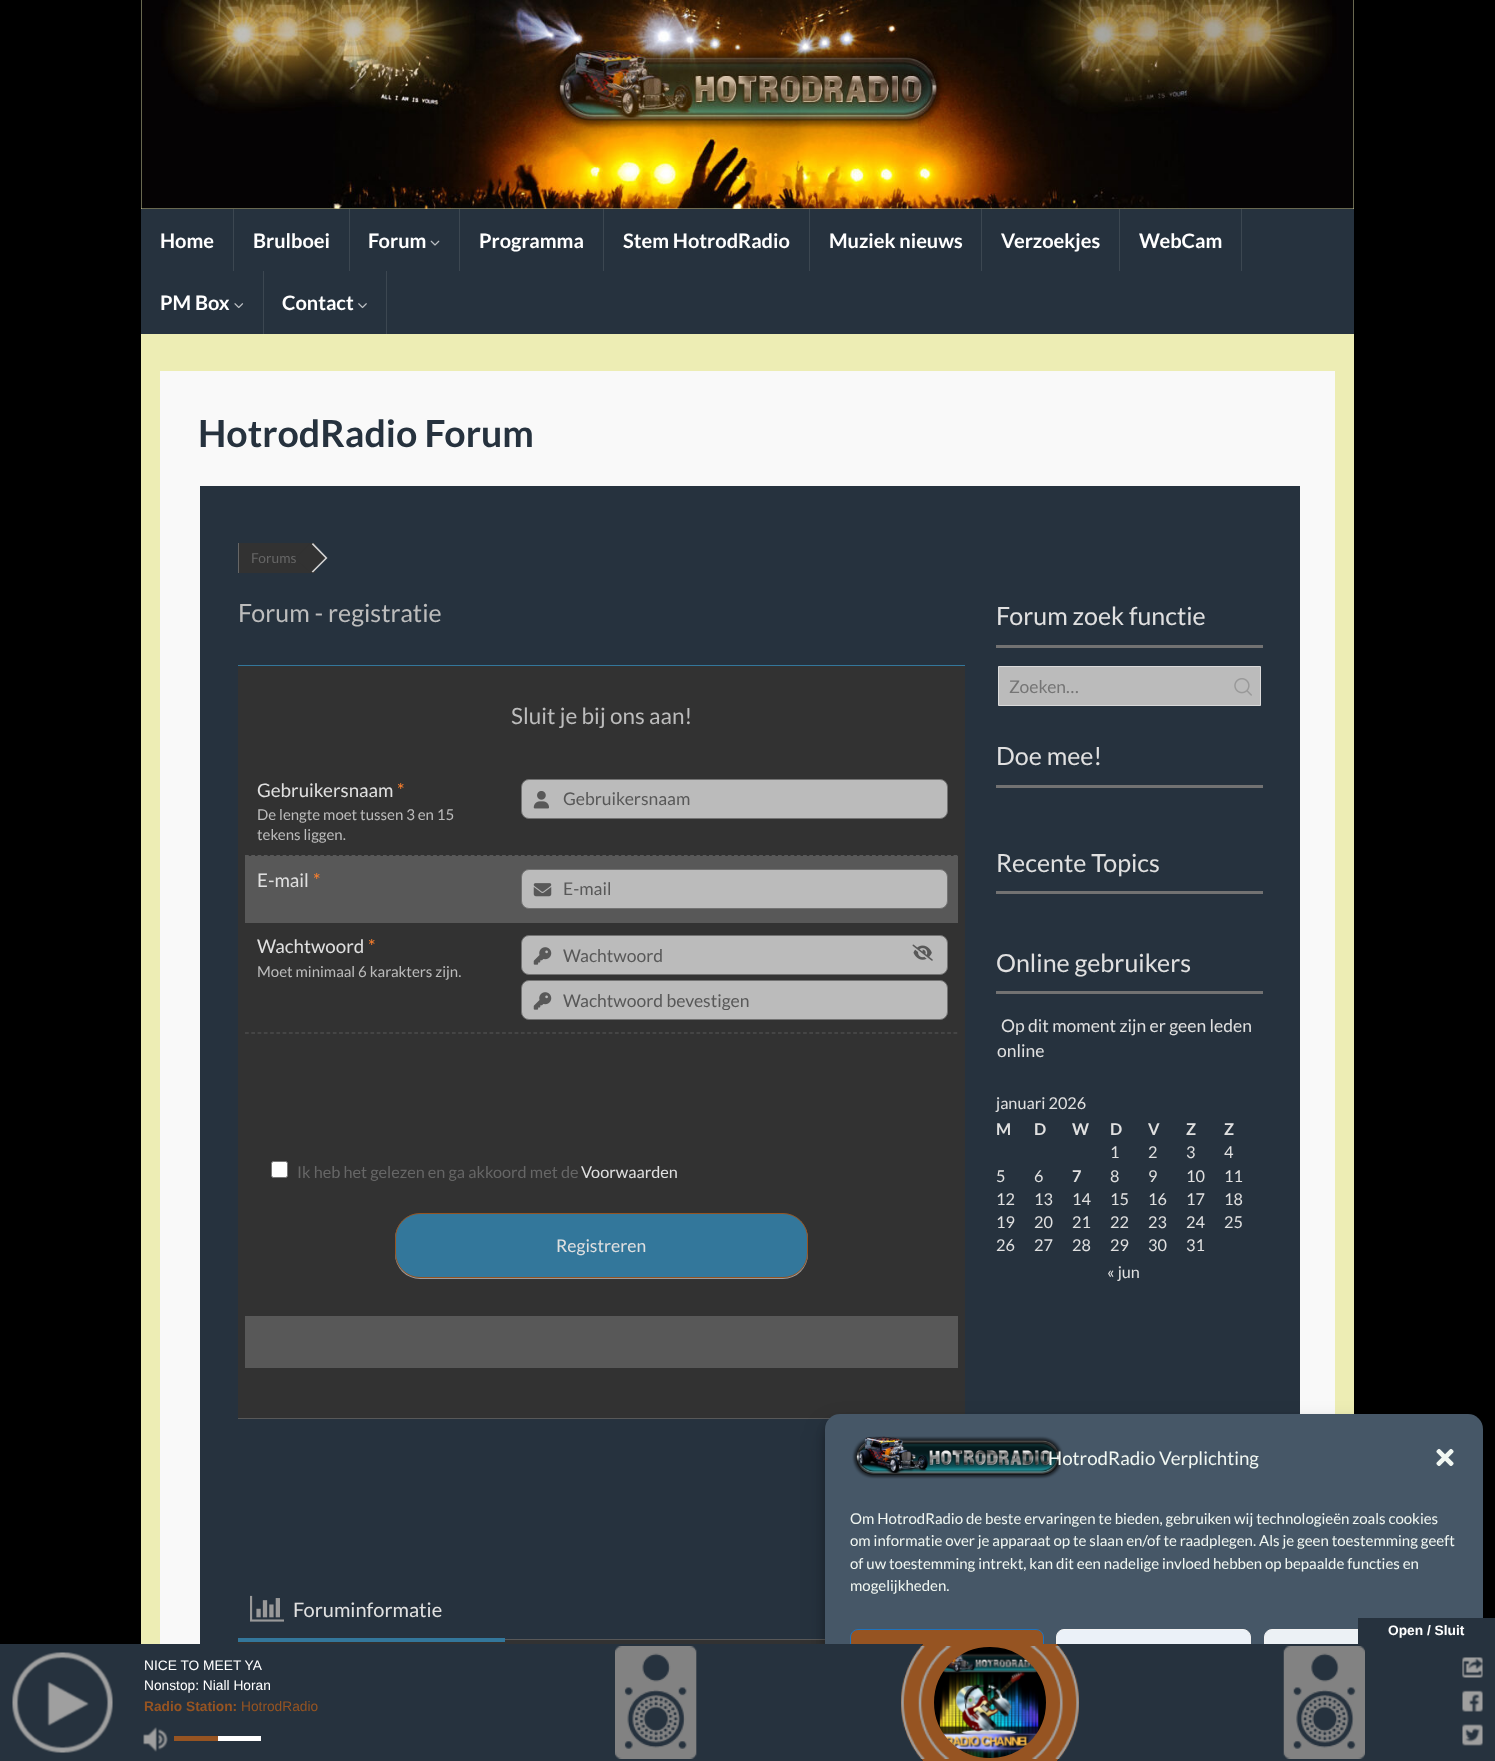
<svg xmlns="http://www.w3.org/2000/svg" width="1495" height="1761">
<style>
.a{font:bold 20px Lato;fill:#fff}
.b{font:bold 37.5px Lato;fill:#26323e}
.c{font:13.75px Lato;fill:#666}
.d{font:25px Lato;fill:#bcbcbc}
.e{font:22.5px Lato;fill:#bcbcbc}
.f{font:18.75px Lato;fill:#e0e0e0}
.g{font:18.75px Lato;fill:#ff812d}
.h{font:15px Lato;fill:#bcbcbc}
.i{font:17.5px Lato;fill:#585858}
.j{font:16.25px Lato;fill:#666}
.k{font:16.25px Lato;fill:#e0e0e0}
.l{font:17.5px Lato;fill:#e0e0e0}
.m{font:25px Lato;fill:#e0e0e0}
.n{font:17.5px Lato;fill:#757575}
.o{font:bold 16.25px Lato;fill:#e0e0e0}
.p{font:20px Lato;fill:#e0e0e0}
.q{font:18.75px Lato;fill:#f1f7f2}
.r{font:15px Lato;fill:#f1f7f2}
.s{font:bold 13.75px Liberation Sans;fill:#fff}
.t{font:13.75px Liberation Sans;fill:#fff}
.u{font:bold 13.75px Liberation Sans;fill:#965422}
.v{font:13.75px Liberation Sans;fill:#965422}
</style>
<defs>
<clipPath id="clip1"><path d="M0 1644h1495v117H0z"/></clipPath>
<clipPath id="clip2"><path d="M563 989h378v21H563z"/></clipPath>
</defs>
<rect width="100%" height="100%" fill="#000"/>
<path fill="#ededb4" d="M141 0h1213v209H141z"/>
<image href="1.png" x="141" y="0" width="1213" height="209"/>
<path fill="#26323e" d="M141 209h1213v125H141z"/>
<path fill="#3c4751" d="M233 209h1v62H233z"/>
<path fill="#3c4751" d="M349 209h1v62H349z"/>
<path fill="#3c4751" d="M459 209h1v62H459z"/>
<image href="2.png" x="430" y="240" width="10" height="6"/>
<path fill="#3c4751" d="M603 209h1v62H603z"/>
<path fill="#3c4751" d="M809 209h1v62H809z"/>
<path fill="#3c4751" d="M981 209h1v62H981z"/>
<path fill="#3c4751" d="M1119 209h1v62H1119z"/>
<path fill="#3c4751" d="M1241 209h1v62H1241z"/>
<path fill="#3c4751" d="M263 271h1v63H263z"/>
<image href="3.png" x="234" y="303" width="10" height="6"/>
<path fill="#3c4751" d="M386 271h1v63H386z"/>
<image href="4.png" x="358" y="303" width="9" height="6"/>
<path fill="#ededb4" d="M141 334h1213v1310H141z"/>
<path fill="#f9f9f9" d="M160 371h1175v1273H160z"/>
<path fill="#26323e" d="M200 486h1100v1158H200z"/>
<path fill="#323232" d="M239 543h76v30H239z"/>
<path fill="#666" d="M238 543h1v30H238z"/>
<path fill="#cecece" d="M313 543l-1.5 1.5l13.5 13.5l-13.5 13.5l1.5 1l14.5-14.5z"/>
<path fill="#323232" d="M238 666h727v752H238z"/>
<path fill="#33779b" d="M238 665h727v1H238z"/>
<path fill="#585858" d="M238 1418h592v1H238z"/>
<path fill="none" stroke="#585858" stroke-width="1.2" stroke-dasharray="3.75 2.52" d="M245 855.5h712.5"/>
<rect fill="#bbb" stroke="#727272" x="521.5" y="779.5" width="426" height="39" rx="7.5"/>
<image href="5.png" x="533" y="791" width="16" height="18"/>
<path fill="#585858" d="M245 856h713v67H245z"/>
<rect fill="#bbb" stroke="#727272" x="521.5" y="869.5" width="426" height="39" rx="7.5"/>
<image href="6.png" x="533" y="883" width="19" height="14"/>
<path fill="none" stroke="#585858" stroke-width="1.2" stroke-dasharray="3.75 2.52" d="M245 1033h712.5"/>
<rect fill="#bbb" stroke="#727272" x="521.5" y="935.5" width="426" height="39" rx="7.5"/>
<image href="7.png" x="533" y="947" width="19" height="18"/>
<image href="8.png" x="912" y="944" width="21" height="17"/>
<rect fill="#bbb" stroke="#727272" x="521.5" y="980.5" width="426" height="39" rx="7.5"/>
<image href="7.png" x="533" y="992" width="19" height="18"/>
<rect fill="#fff" stroke="#767676" x="271.5" y="1161.5" width="16" height="16" rx="2"/>
<rect fill="#999" filter="blur(0.5px)" x="395" y="1214" width="413" height="65" rx="25"/>
<rect fill="#33779b" stroke="#965422" x="395.5" y="1213.5" width="412" height="64" rx="24.5"/>
<path fill="#585858" d="M245 1316h713v52H245z"/>
<path fill="#727272" d="M996 645h267v3H996z"/>
<path fill="#bbb" stroke="#dadada" d="M998.5 666.5h262v39H998.5z"/>
<image href="9.png" x="1234" y="678" width="18" height="18"/>
<path fill="#727272" d="M996 785h267v3H996z"/>
<path fill="#727272" d="M996 891h267v3H996z"/>
<path fill="#727272" d="M996 991h267v3H996z"/>
<path fill="#585858" d="M505 1639h320v1H505z"/>
<path fill="#323232" d="M238 1640h587v4H238z"/>
<path fill="#33779b" d="M238 1638h267v4H238z"/>
<image href="10.png" x="250" y="1595" width="34" height="27"/>
<rect fill="#0000003b" filter="blur(4px)" x="825" y="1421" width="658" height="335" rx="15"/>
<rect fill="#00000030" filter="blur(12.5px)" x="825" y="1426" width="658" height="335" rx="15"/>
<rect fill="#465767" x="825" y="1414" width="658" height="335" rx="15"/>
<image href="11.png" x="852" y="1436" width="211" height="43"/>
<image href="12.png" x="1436" y="1448" width="18" height="18"/>
<rect fill="#965422" stroke="#1e73be" x="850.5" y="1629.5" width="193" height="55" rx="7.5"/>
<rect fill="#ebf1f8" stroke="#f2f2f2" x="1056.5" y="1629.5" width="194" height="55" rx="7.5"/>
<rect fill="#ecf1f5" stroke="#f2f2f2" x="1264.5" y="1629.5" width="193" height="55" rx="7.5"/>
<path fill="#26323e" d="M0 1644h1495v117H0z"/>
<g clip-path="url(#clip1)">
<rect fill="#000" x="901" y="1614" width="178" height="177" rx="88.5"/>
</g>
<image href="13.png" x="937" y="1652" width="108" height="106"/>
<g clip-path="url(#clip1)">
<rect fill="none" stroke="#965422" stroke-width="33" x="917.5" y="1630.5" width="145" height="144" rx="72"/>
</g>
<image href="14.png" x="615" y="1646" width="750" height="113"/>
<path fill="#26323e" d="M1358 1618h137v26H1358z"/>
<image href="15.png" x="12" y="1652" width="101" height="101"/>
<image href="16.png" x="1462" y="1657" width="21" height="21"/>
<image href="17.png" x="1462" y="1690" width="21" height="22"/>
<image href="18.png" x="143" y="1727" width="25" height="25"/>
<path fill="#fff" d="M218 1736h43v5H218z"/>
<path fill="#965422" d="M174 1736h44v5H174z"/>
<image href="19.png" x="1462" y="1724" width="21" height="22"/>
<text class="a" x="160" y="248">Home</text>
<text class="a" x="253" y="248">Brulboei</text>
<text class="a" x="368" y="248">Forum</text>
<text class="a" x="479" y="248">Programma</text>
<text class="a" x="623" y="248">Stem HotrodRadio</text>
<text class="a" x="829" y="248">Muziek nieuws</text>
<text class="a" x="1001" y="248">Verzoekjes</text>
<text class="a" x="1139" y="248">WebCam</text>
<text class="a" x="160" y="310">PM Box</text>
<text class="a" x="282" y="310">Contact</text>
<text class="b" x="198" y="447">HotrodRadio Forum</text>
<text class="c" x="251" y="563">Forums</text>
<path fill="#323232" d="M310.5 543l14.5 15l-14.5 14.5l-15-14.5z"/>
<text class="d" x="238" y="622">Forum - registratie</text>
<text class="e" x="511" y="724">Sluit je bij ons aan!</text>
<text class="f" x="257" y="797">Gebruikersnaam</text>
<text class="g" x="397" y="797">*</text>
<text class="h" x="257" y="820">De lengte moet tussen 3 en 15</text>
<text class="h" x="257" y="840">tekens liggen.</text>
<text class="i" x="563" y="805">Gebruikersnaam</text>
<text class="f" x="257" y="887">E-mail</text>
<text class="g" x="313" y="887">*</text>
<text class="i" x="563" y="895">E-mail</text>
<text class="f" x="257" y="953">Wachtwoord</text>
<text class="g" x="368" y="953">*</text>
<text class="h" x="257" y="977">Moet minimaal 6 karakters zijn.</text>
<text class="i" x="563" y="962">Wachtwoord</text>
<g clip-path="url(#clip2)">
<text class="i" x="563" y="1007">Wachtwoord bevestigen</text>
</g>
<text class="j" x="297" y="1178">Ik heb het gelezen en ga akkoord met de</text>
<text class="k" x="581" y="1178">Voorwaarden</text>
<text class="l" x="556" y="1252">Registreren</text>
<text class="m" x="996" y="625">Forum zoek functie</text>
<text class="n" x="1009" y="693">Zoeken…</text>
<text class="m" x="996" y="765">Doe mee!</text>
<text class="m" x="996" y="872">Recente Topics</text>
<text class="m" x="996" y="972">Online gebruikers</text>
<text class="l" x="1001" y="1032">Op dit moment zijn er geen leden</text>
<text class="l" x="997" y="1057">online</text>
<text class="k" x="996" y="1109">januari 2026</text>
<text class="o" x="996" y="1135">M</text>
<text class="o" x="1034" y="1135">D</text>
<text class="o" x="1072" y="1135">W</text>
<text class="o" x="1110" y="1135">D</text>
<text class="o" x="1148" y="1135">V</text>
<text class="o" x="1186" y="1135">Z</text>
<text class="o" x="1224" y="1135">Z</text>
<text class="k" x="1110" y="1158">1</text>
<text class="k" x="1148" y="1158">2</text>
<text class="k" x="1186" y="1158">3</text>
<text class="k" x="1224" y="1158">4</text>
<text class="k" x="996" y="1182">5</text>
<text class="k" x="1034" y="1182">6</text>
<text class="o" x="1072" y="1182">7</text>
<text class="k" x="1110" y="1182">8</text>
<text class="k" x="1148" y="1182">9</text>
<text class="k" x="1186" y="1182">10</text>
<text class="k" x="1224" y="1182">11</text>
<text class="k" x="996" y="1205">12</text>
<text class="k" x="1034" y="1205">13</text>
<text class="k" x="1072" y="1205">14</text>
<text class="k" x="1110" y="1205">15</text>
<text class="k" x="1148" y="1205">16</text>
<text class="k" x="1186" y="1205">17</text>
<text class="k" x="1224" y="1205">18</text>
<text class="k" x="996" y="1228">19</text>
<text class="k" x="1034" y="1228">20</text>
<text class="k" x="1072" y="1228">21</text>
<text class="k" x="1110" y="1228">22</text>
<text class="k" x="1148" y="1228">23</text>
<text class="k" x="1186" y="1228">24</text>
<text class="k" x="1224" y="1228">25</text>
<text class="k" x="996" y="1251">26</text>
<text class="k" x="1034" y="1251">27</text>
<text class="k" x="1072" y="1251">28</text>
<text class="k" x="1110" y="1251">29</text>
<text class="k" x="1148" y="1251">30</text>
<text class="k" x="1186" y="1251">31</text>
<text class="k" x="1107" y="1278">« jun</text>
<text class="p" x="293" y="1617">Foruminformatie</text>
<text class="q" x="1048" y="1465">HotrodRadio Verplichting</text>
<text class="r" x="850" y="1524">Om HotrodRadio de beste ervaringen te bieden, gebruiken wij technologieën zoals cookies</text>
<text class="r" x="850" y="1546">om informatie over je apparaat op te slaan en/of te raadplegen. Als je geen toestemming geeft</text>
<text class="r" x="850" y="1569">of uw toestemming intrekt, kan dit een nadelige invloed hebben op bepaalde functies en</text>
<text class="r" x="850" y="1591">mogelijkheden.</text>
<text class="s" x="1388" y="1635">Open / Sluit</text>
<text class="t" x="144" y="1670">NICE TO MEET YA</text>
<text class="t" x="144" y="1690">Nonstop: Niall Horan</text>
<text class="u" x="144" y="1711">Radio Station:</text>
<text class="v" x="241" y="1711">HotrodRadio</text>
</svg>
